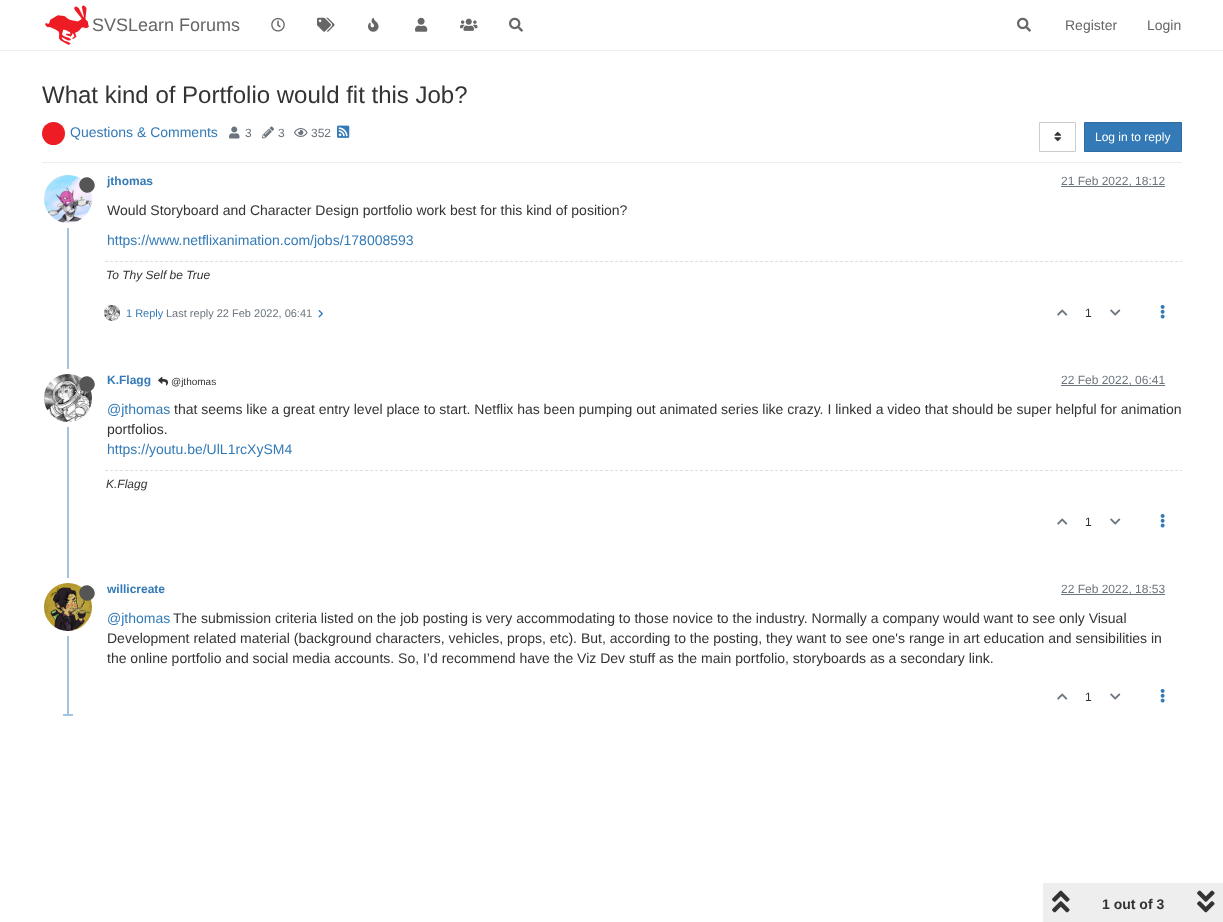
<svg xmlns="http://www.w3.org/2000/svg" width="1223" height="922">
<style>
.a{font:18px Liberation Sans;fill:#666}
.b{font:14px Liberation Sans;fill:#666}
.c{font:24px Liberation Sans;fill:#333}
.d{font:14px Liberation Sans;fill:#337ab7}
.e{font:12px Liberation Sans;fill:#6c757d}
.f{font:12px Liberation Sans;fill:#fff}
.g{font:bold 12px Liberation Sans;fill:#337ab7}
.h{font:14px Liberation Sans;fill:#333}
.i{font:italic 12px Liberation Sans;fill:#333}
.j{font:11px Liberation Sans;fill:#337ab7}
.k{font:11px Liberation Sans;fill:#6c757d}
.l{font:12px Liberation Sans;fill:#333}
.m{font:10px Liberation Sans;fill:#333}
.n{font:bold 14px Liberation Sans;fill:#333}
</style>
<rect width="100%" height="100%" fill="#fff"/>
<path fill="#eee" d="M0 50h1223v1H0z"/>
<image href="1.png" x="45" y="5" width="44" height="40"/>
<image href="2.png" x="271" y="18" width="14" height="14"/>
<image href="3.png" x="317" y="17" width="18" height="15"/>
<image href="4.png" x="368" y="17" width="11" height="15"/>
<image href="5.png" x="415" y="17" width="13" height="15"/>
<image href="6.png" x="460" y="18" width="18" height="13"/>
<image href="7.png" x="509" y="17" width="14" height="15"/>
<image href="7.png" x="1017" y="17" width="14" height="15"/>
<path fill="#eee" d="M42 162h1140v1H42z"/>
<image href="8.png" x="42" y="122" width="23" height="23"/>
<image href="9.png" x="229" y="126" width="11" height="13"/>
<image href="10.png" x="262" y="126" width="12" height="13"/>
<image href="11.png" x="294" y="128" width="14" height="9"/>
<image href="12.png" x="337" y="125" width="13" height="13"/>
<path fill="none" stroke="#ccc" d="M1039.5 122.5h36v29H1039.5z"/>
<image href="13.png" x="1054" y="131" width="8" height="11"/>
<path fill="#337ab7" stroke="#2e6da4" d="M1084.5 122.5h97v29H1084.5z"/>
<path fill="#a0c4e4" d="M67 173h2v543H67z"/>
<circle fill="none" stroke="#fff" stroke-width="5" cx="68" cy="199" r="26.5"/>
<image href="14.png" x="44" y="175" width="48" height="48"/>
<path fill="#555" d="M81.5 179.5c7-7 18 4 11 11c-7 7-18-4-11-11z"/>
<path fill="#6c757d" d="M1061 186h104v1H1061z"/>
<path fill="none" stroke="#dedede" stroke-dasharray="3 2" d="M105 261.5h1077"/>
<image href="15.png" x="104" y="305" width="16" height="16"/>
<image href="16.png" x="318" y="310" width="5" height="8"/>
<image href="17.png" x="1057" y="309" width="11" height="7"/>
<image href="18.png" x="1110" y="309" width="11" height="7"/>
<image href="19.png" x="1160" y="305" width="5" height="14"/>
<circle fill="none" stroke="#fff" stroke-width="5" cx="68" cy="398" r="26.5"/>
<image href="20.png" x="44" y="374" width="48" height="48"/>
<path fill="#555" d="M81.5 378.5c7-7 18 4 11 11c-7 7-18-4-11-11z"/>
<image href="21.png" x="158" y="376" width="10" height="10"/>
<path fill="#6c757d" d="M1061 385h104v1H1061z"/>
<path fill="none" stroke="#dedede" stroke-dasharray="3 2" d="M105 470.5h1077"/>
<image href="17.png" x="1057" y="518" width="11" height="7"/>
<image href="18.png" x="1110" y="518" width="11" height="7"/>
<image href="19.png" x="1160" y="514" width="5" height="14"/>
<circle fill="none" stroke="#fff" stroke-width="5" cx="68" cy="607" r="26.5"/>
<image href="22.png" x="44" y="583" width="48" height="48"/>
<path fill="#555" d="M81.5 587.5c7-7 18 4 11 11c-7 7-18-4-11-11z"/>
<path fill="#6c757d" d="M1061 594h104v1H1061z"/>
<image href="17.png" x="1057" y="693" width="11" height="7"/>
<image href="18.png" x="1110" y="693" width="11" height="7"/>
<image href="19.png" x="1160" y="689" width="5" height="14"/>
<path fill="#a0c4e4" d="M63 714h10v2H63z"/>
<path fill="#eee" d="M1043 883h180v39H1043z"/>
<image href="23.png" x="1052" y="890" width="18" height="23"/>
<image href="24.png" x="1197" y="890" width="18" height="23"/>
<text class="a" x="92" y="31">SVSLearn Forums</text>
<text class="b" x="1065" y="30">Register</text>
<text class="b" x="1147" y="30">Login</text>
<text class="c" x="42" y="103">What kind of Portfolio would fit this Job?</text>
<text class="d" x="70" y="137">Questions &amp; Comments</text>
<text class="e" x="245" y="137">3</text>
<text class="e" x="278" y="137">3</text>
<text class="e" x="311" y="137">352</text>
<text class="f" x="1095" y="141">Log in to reply</text>
<text class="g" x="107" y="185">jthomas</text>
<text class="e" x="1061" y="185">21 Feb 2022, 18:12</text>
<text class="h" x="107" y="215">Would Storyboard and Character Design portfolio work best for this kind of position?</text>
<text class="d" x="107" y="245">https://www.netflixanimation.com/jobs/178008593</text>
<text class="i" x="106" y="279">To Thy Self be True</text>
<text class="j" x="126" y="317">1 Reply</text>
<text class="k" x="166" y="317">Last reply 22 Feb 2022, 06:41</text>
<text class="l" x="1085" y="317">1</text>
<text class="g" x="107" y="384">K.Flagg</text>
<text class="m" x="171" y="385">@jthomas</text>
<text class="e" x="1061" y="384">22 Feb 2022, 06:41</text>
<text class="d" x="107" y="414">@jthomas</text>
<text class="h" x="174" y="414">that seems like a great entry level place to start. Netflix has been pumping out animated series like crazy. I linked a video that should be super helpful for animation</text>
<text class="h" x="107" y="434">portfolios.</text>
<text class="d" x="107" y="454">https://youtu.be/UlL1rcXySM4</text>
<text class="i" x="106" y="488">K.Flagg</text>
<text class="l" x="1085" y="526">1</text>
<text class="g" x="107" y="593">willicreate</text>
<text class="e" x="1061" y="593">22 Feb 2022, 18:53</text>
<text class="d" x="107" y="623">@jthomas</text>
<text class="h" x="173" y="623">The submission criteria listed on the job posting is very accommodating to those novice to the industry. Normally a company would want to see only Visual</text>
<text class="h" x="107" y="643">Development related material (background characters, vehicles, props, etc). But, according to the posting, they want to see one's range in art education and sensibilities in</text>
<text class="h" x="107" y="663">the online portfolio and social media accounts. So, I’d recommend have the Viz Dev stuff as the main portfolio, storyboards as a secondary link.</text>
<text class="l" x="1085" y="701">1</text>
<text class="n" x="1102" y="909">1 out of 3</text>
</svg>
